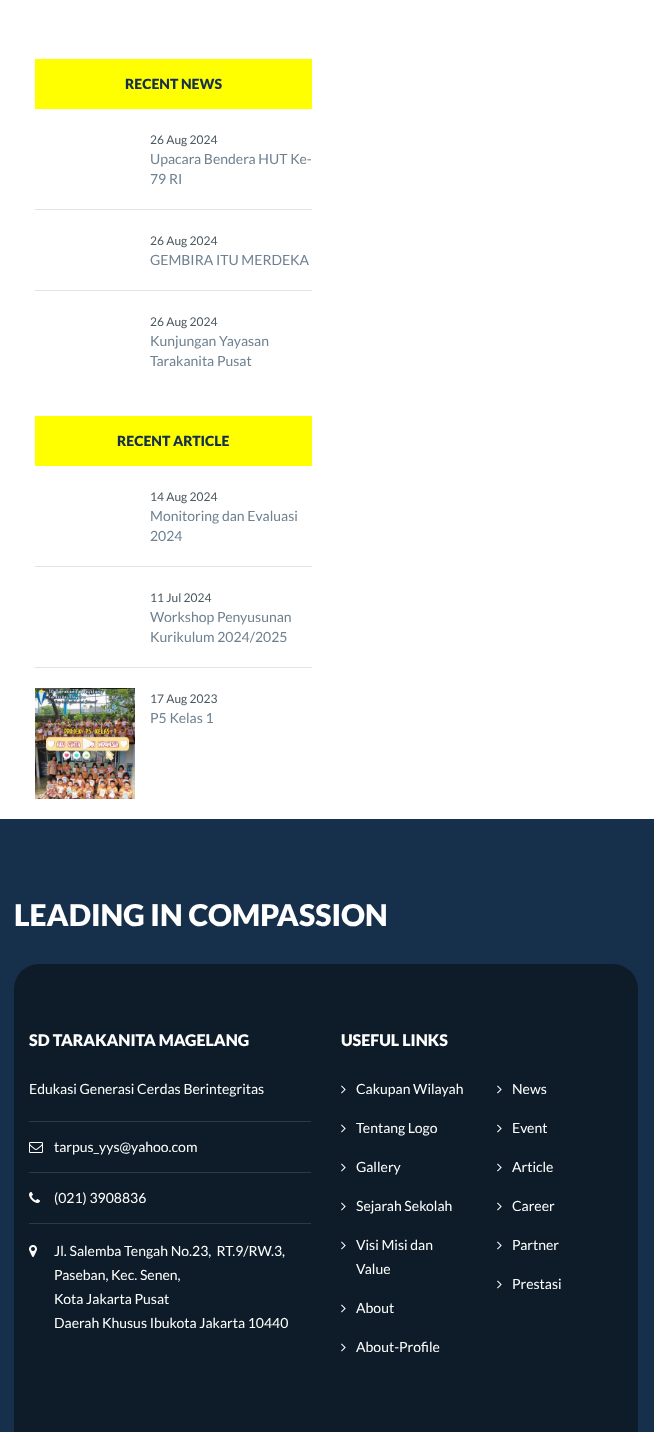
<svg xmlns="http://www.w3.org/2000/svg" width="654" height="1432">
<style>
.a{font:900 14px Lato;fill:#16304c}
.b{font:12px Lato;fill:#49575f}
.c{font:14px Lato;fill:#6f8190}
.d{font:900 30px Lato;fill:#fff}
.e{font:900 16px Lato;fill:#fff}
.f{font:14px Lato;fill:#fff}
</style>
<rect width="100%" height="100%" fill="#16304c"/>
<path fill="#fff" d="M0 0h654v819H0z"/>
<path fill="#ff0" d="M35 59h277v50H35z"/>
<path fill="#dee5e9" d="M35 209h277v1H35z"/>
<path fill="#dee5e9" d="M35 290h277v1H35z"/>
<path fill="#ff0" d="M35 416h277v50H35z"/>
<path fill="#dee5e9" d="M35 566h277v1H35z"/>
<path fill="#dee5e9" d="M35 667h277v1H35z"/>
<image href="1.png" x="35" y="688" width="100" height="111"/>
<rect fill="#0d1c28" x="14" y="964" width="624" height="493" rx="25"/>
<path fill="#2f374c" d="M29 1121h282v1H29z"/>
<image href="2.png" x="29" y="1142" width="14" height="11"/>
<path fill="#2f374c" d="M29 1172h282v1H29z"/>
<image href="3.png" x="29" y="1192" width="11" height="11"/>
<path fill="#2f374c" d="M29 1223h282v1H29z"/>
<image href="4.png" x="29" y="1245" width="8" height="12"/>
<image href="5.png" x="341" y="1085" width="5" height="9"/>
<image href="5.png" x="341" y="1124" width="5" height="9"/>
<image href="5.png" x="341" y="1163" width="5" height="9"/>
<image href="5.png" x="341" y="1202" width="5" height="9"/>
<image href="5.png" x="341" y="1241" width="5" height="9"/>
<image href="5.png" x="341" y="1304" width="5" height="9"/>
<image href="5.png" x="341" y="1343" width="5" height="9"/>
<image href="5.png" x="497" y="1085" width="5" height="9"/>
<image href="5.png" x="497" y="1124" width="5" height="9"/>
<image href="5.png" x="497" y="1163" width="5" height="9"/>
<image href="5.png" x="497" y="1202" width="5" height="9"/>
<image href="5.png" x="497" y="1241" width="5" height="9"/>
<image href="5.png" x="497" y="1280" width="5" height="9"/>
<text class="a" x="125" y="89">RECENT NEWS</text>
<text class="b" x="150" y="144">26 Aug 2024</text>
<text class="c" x="150" y="164">Upacara Bendera HUT Ke-</text>
<text class="c" x="150" y="184">79 RI</text>
<text class="b" x="150" y="245">26 Aug 2024</text>
<text class="c" x="150" y="265">GEMBIRA ITU MERDEKA</text>
<text class="b" x="150" y="326">26 Aug 2024</text>
<text class="c" x="150" y="346">Kunjungan Yayasan</text>
<text class="c" x="150" y="366">Tarakanita Pusat</text>
<text class="a" x="117" y="446">RECENT ARTICLE</text>
<text class="b" x="150" y="501">14 Aug 2024</text>
<text class="c" x="150" y="521">Monitoring dan Evaluasi</text>
<text class="c" x="150" y="541">2024</text>
<text class="b" x="150" y="602">11 Jul 2024</text>
<text class="c" x="150" y="622">Workshop Penyusunan</text>
<text class="c" x="150" y="642">Kurikulum 2024/2025</text>
<text class="b" x="150" y="703">17 Aug 2023</text>
<text class="c" x="150" y="723">P5 Kelas 1</text>
<text class="d" x="14" y="926">LEADING IN COMPASSION</text>
<text class="e" x="29" y="1046">SD TARAKANITA MAGELANG</text>
<text class="f" x="29" y="1094">Edukasi Generasi Cerdas Berintegritas</text>
<text class="f" x="54" y="1152">tarpus_yys@yahoo.com</text>
<text class="f" x="54" y="1203">(021) 3908836</text>
<text class="f" xml:space="preserve" x="54" y="1256">Jl. Salemba Tengah No.23,  RT.9/RW.3,</text>
<text class="f" x="54" y="1280">Paseban, Kec. Senen,</text>
<text class="f" x="54" y="1304">Kota Jakarta Pusat</text>
<text class="f" x="54" y="1328">Daerah Khusus Ibukota Jakarta 10440</text>
<text class="e" x="341" y="1046">USEFUL LINKS</text>
<text class="f" x="356" y="1094">Cakupan Wilayah</text>
<text class="f" x="356" y="1133">Tentang Logo</text>
<text class="f" x="356" y="1172">Gallery</text>
<text class="f" x="356" y="1211">Sejarah Sekolah</text>
<text class="f" x="356" y="1250">Visi Misi dan</text>
<text class="f" x="356" y="1274">Value</text>
<text class="f" x="356" y="1313">About</text>
<text class="f" x="356" y="1352">About-Profile</text>
<text class="f" x="512" y="1094">News</text>
<text class="f" x="512" y="1133">Event</text>
<text class="f" x="512" y="1172">Article</text>
<text class="f" x="512" y="1211">Career</text>
<text class="f" x="512" y="1250">Partner</text>
<text class="f" x="512" y="1289">Prestasi</text>
</svg>
